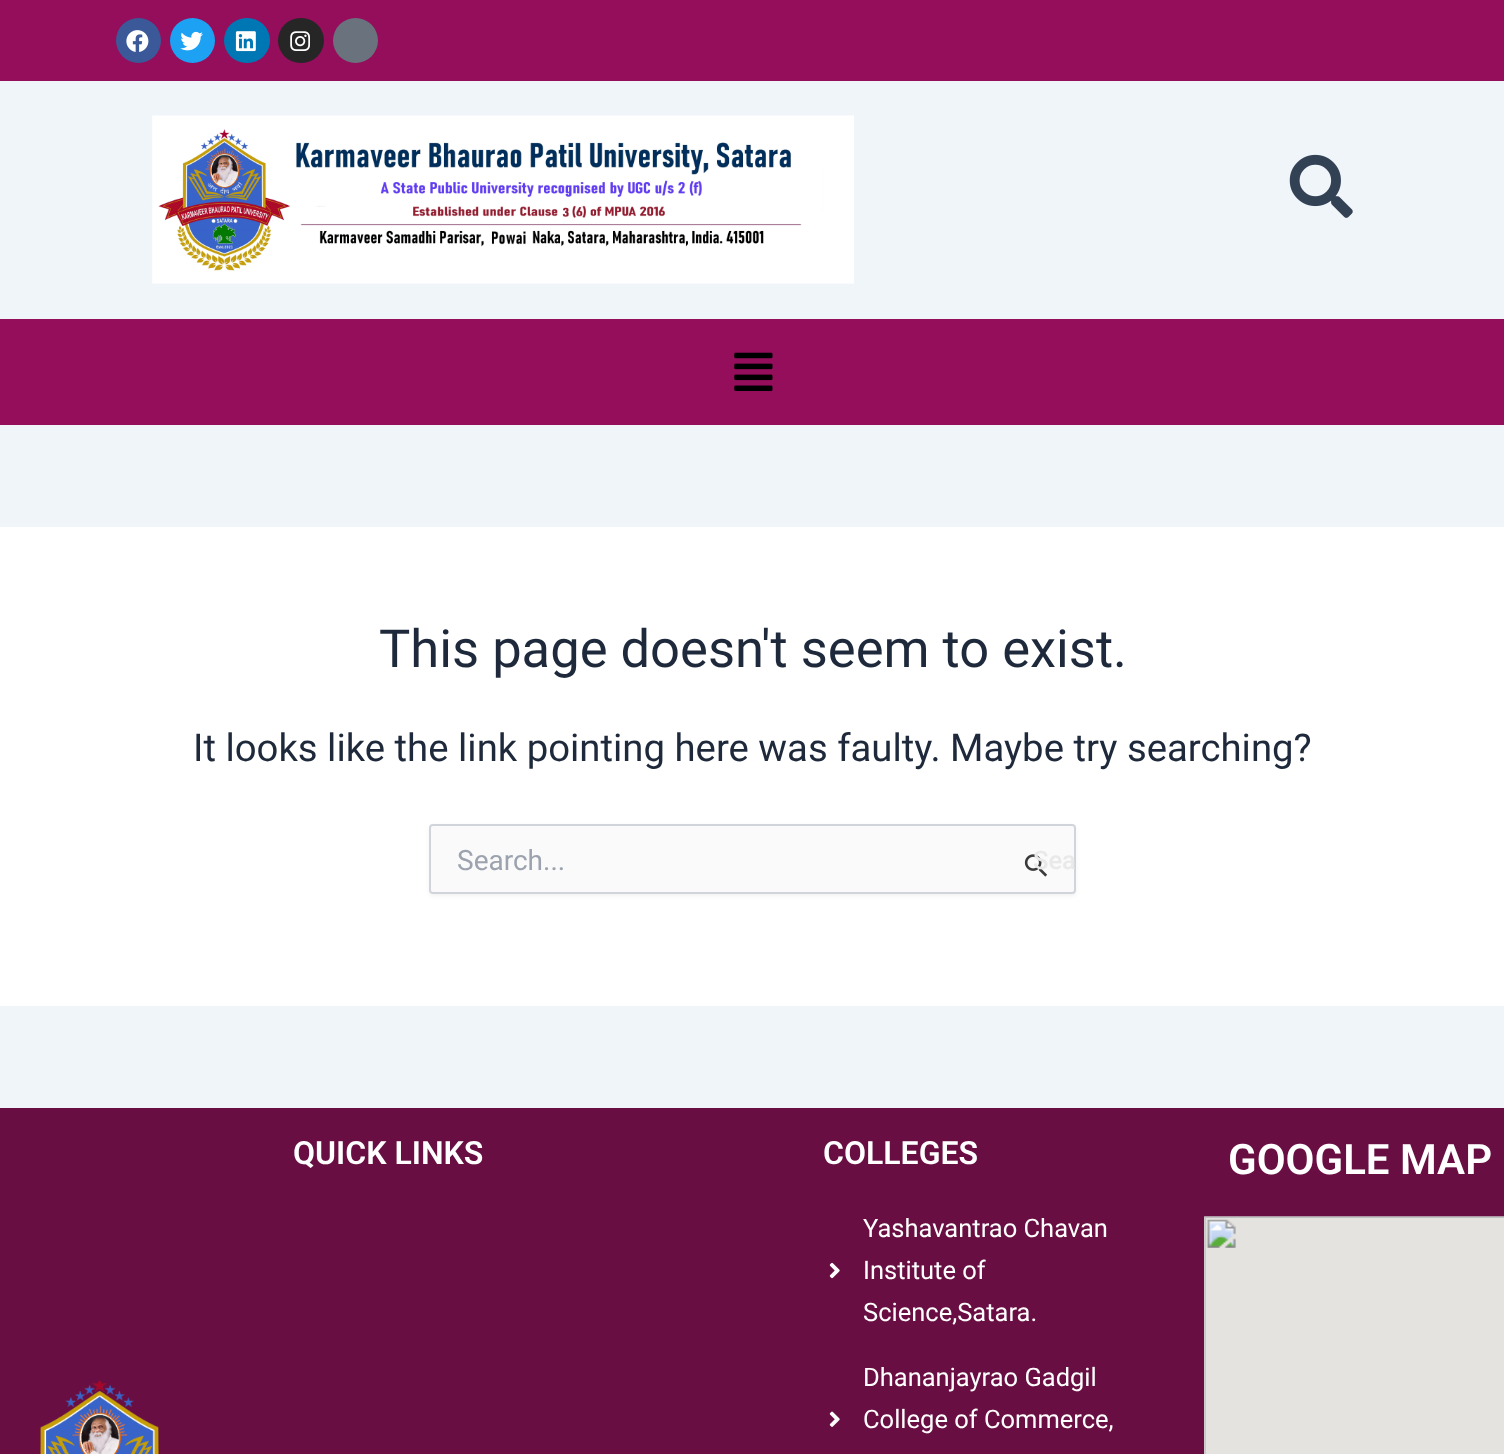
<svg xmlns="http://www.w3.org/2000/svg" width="1504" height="1454">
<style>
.a{font:52.5px Roboto;fill:#1e293b}
.b{font:38.3px Roboto;fill:#1e293b}
.c{font:28px Roboto;fill:#9ca3af}
.d{font:500 25.5px Roboto;fill:#e9e9e9}
.e{font:600 32px Roboto;fill:#fff}
.f{font:25.5px Roboto;fill:#fff}
.g{font:600 42px Roboto;fill:#fff}
</style>
<rect width="100%" height="100%" fill="#f0f5fa"/>
<path fill="#940e5c" d="M0 0h1504v81H0z"/>
<circle fill="#3b5998" cx="138.5" cy="40.5" r="22.5"/>
<image href="1.png" x="126" y="30" width="23" height="22"/>
<circle fill="#1da1f2" cx="192.5" cy="40.5" r="22.5"/>
<image href="2.png" x="180" y="31" width="23" height="20"/>
<rect fill="#0077b5" x="224" y="18" width="46" height="45" rx="22.5"/>
<image href="3.png" x="235" y="31" width="21" height="21"/>
<rect fill="#262626" x="278" y="18" width="46" height="45" rx="22.5"/>
<image href="4.png" x="290" y="31" width="20" height="20"/>
<circle fill="#69727d" cx="355.5" cy="40.5" r="22.5"/>
<image href="5.png" x="152" y="115" width="702" height="169"/>
<image href="6.png" x="1289" y="154" width="64" height="64"/>
<path fill="#940e5c" d="M0 319h1504v106H0z"/>
<image href="7.png" x="734" y="352" width="39" height="39"/>
<path fill="#fff" d="M0 527h1504v479H0z"/>
<rect fill="#0000000d" filter="blur(2px)" x="429" y="826" width="647" height="70" rx="4"/>
<rect fill="#fafafa" stroke="#d1d5db" stroke-width="2" x="430" y="825" width="645" height="68" rx="3"/>
<image href="8.png" x="1024" y="854" width="23" height="23"/>
<path fill="#690e43" d="M0 1108h1504v346H0z"/>
<image href="9.png" x="829" y="1262" width="11" height="17"/>
<image href="10.png" x="829" y="1411" width="11" height="16"/>
<image href="11.png" x="1204" y="1216" width="300" height="238"/>
<image href="12.png" x="40" y="1380" width="119" height="74"/>
<text class="a" x="379" y="667">This page doesn't seem to exist.</text>
<text class="b" x="193" y="761">It looks like the link pointing here was faulty. Maybe try searching?</text>
<text class="c" x="457" y="870">Search...</text>
<text class="d" x="1033" y="869">Sea</text>
<text class="e" x="293" y="1164">QUICK LINKS</text>
<text class="e" x="823" y="1164">COLLEGES</text>
<text class="f" x="863" y="1237">Yashavantrao Chavan</text>
<text class="f" x="863" y="1279">Institute of</text>
<text class="f" x="863" y="1321">Science,Satara.</text>
<text class="f" x="863" y="1386">Dhananjayrao Gadgil</text>
<text class="f" x="863" y="1428">College of Commerce,</text>
<text class="g" x="1228" y="1174">GOOGLE MAP</text>
</svg>
